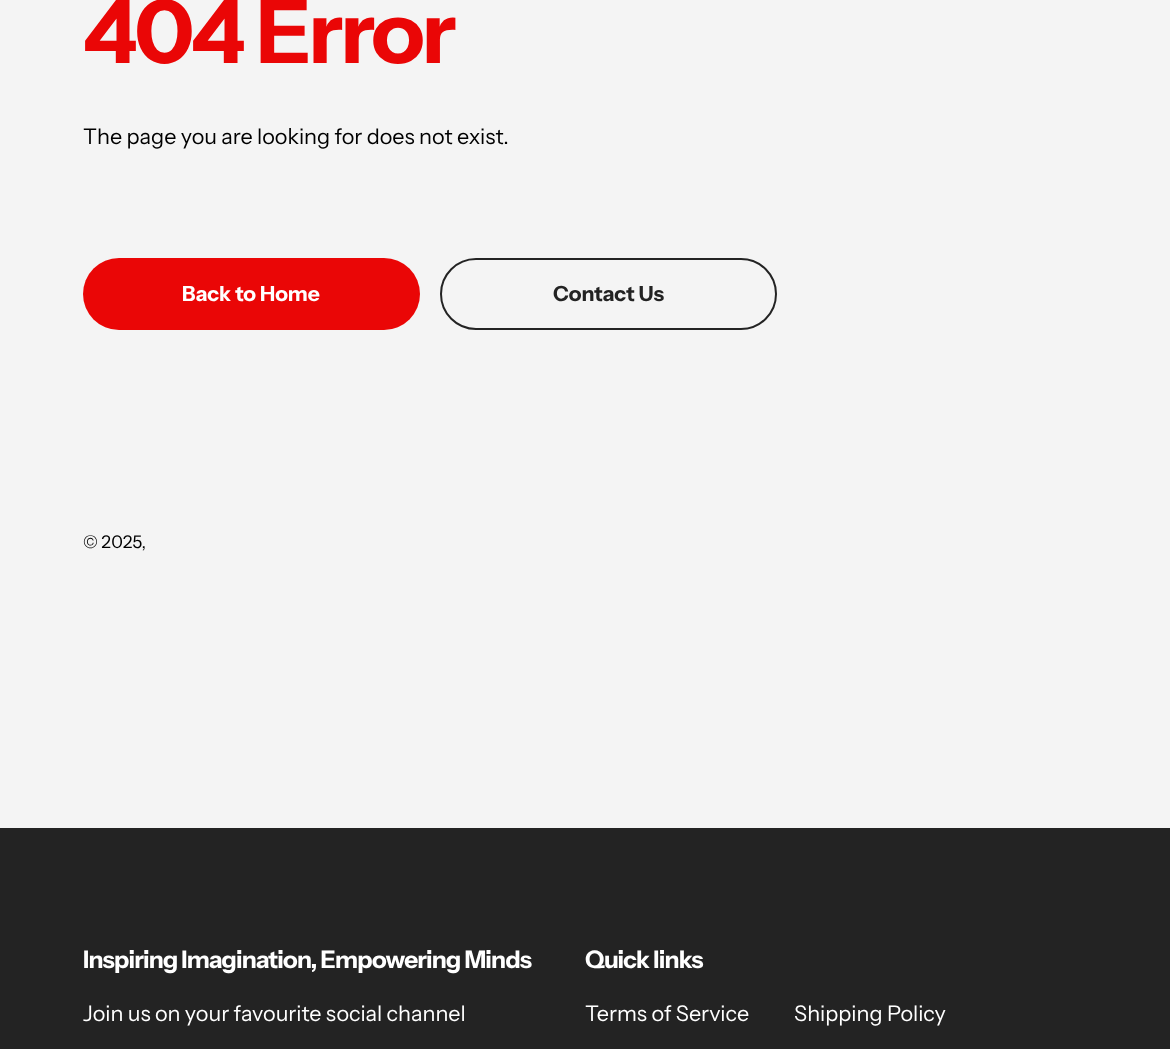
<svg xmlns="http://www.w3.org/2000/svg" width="1170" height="1049">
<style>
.a{font:bold 87.75px Instrument Sans;letter-spacing:-3px;fill:#ea0606}
.b{font:21.6px Instrument Sans;fill:#000}
.c{font:bold 21px Instrument Sans;fill:#fff}
.d{font:bold 21px Instrument Sans;fill:#232323}
.e{font:17.5px Instrument Sans;fill:#000}
.f{font:bold 24.25px Instrument Sans;letter-spacing:-0.75px;fill:#fff}
.g{font:21.6px Instrument Sans;fill:#fff}
</style>
<rect width="100%" height="100%" fill="#f4f4f4"/>
<rect fill="#ea0606" x="83" y="258" width="337" height="72" rx="36"/>
<rect fill="none" stroke="#232323" stroke-width="2" x="441" y="259" width="335" height="70" rx="35"/>
<path fill="#232323" d="M0 828h1170v221H0z"/>
<text class="a" x="83" y="63">404 Error</text>
<text class="b" x="83" y="144">The page you are looking for does not exist.</text>
<text class="c" x="182" y="301">Back to Home</text>
<text class="d" x="553" y="301">Contact Us</text>
<text class="e" x="83" y="548">© 2025,</text>
<text class="f" x="83" y="968">Inspiring Imagination, Empowering Minds</text>
<text class="g" x="83" y="1021">Join us on your favourite social channel</text>
<text class="f" x="585" y="968">Quick links</text>
<text class="g" x="585" y="1021">Terms of Service</text>
<text class="g" x="794" y="1021">Shipping Policy</text>
</svg>
